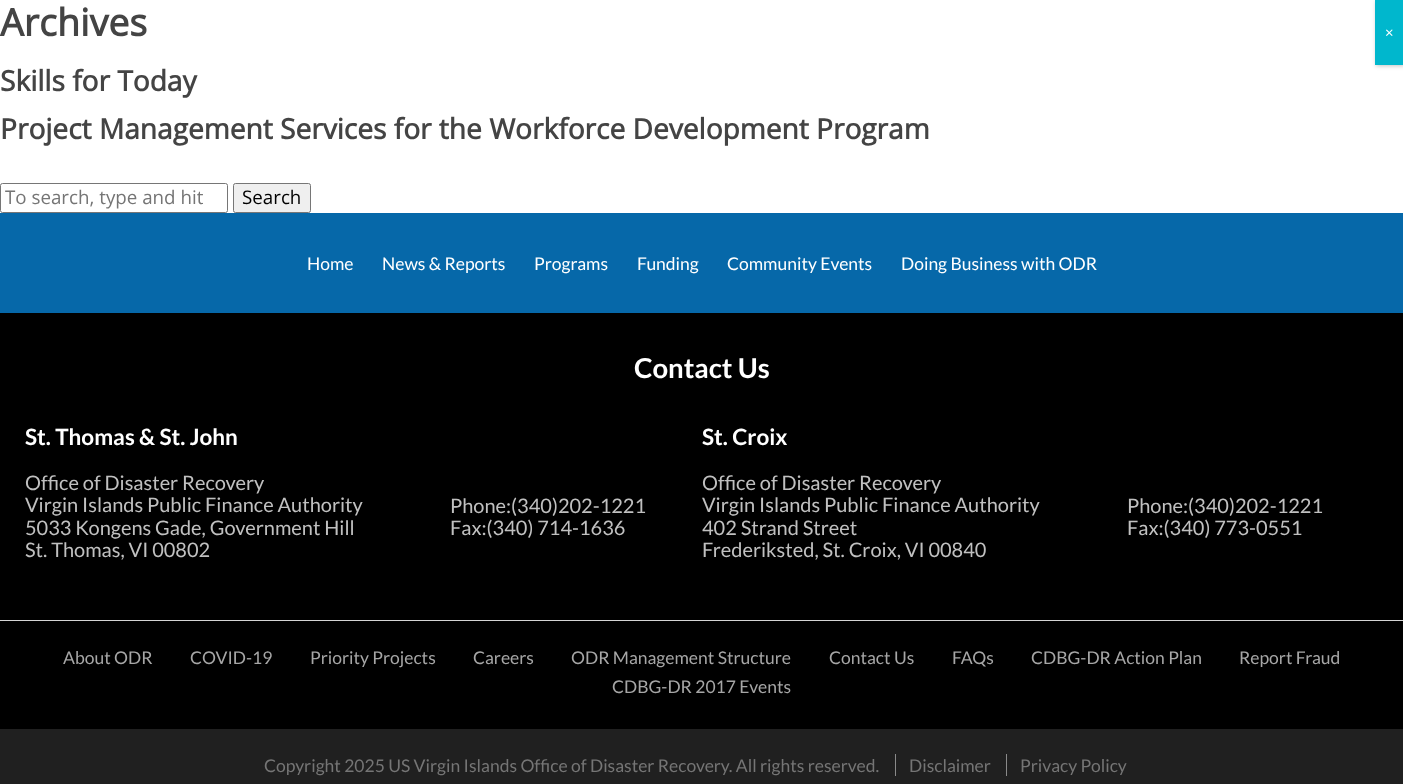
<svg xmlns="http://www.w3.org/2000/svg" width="1403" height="784">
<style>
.a{font:bold 37.5px Open Sans;fill:#444}
.b{font:bold 28.1px Open Sans;fill:#444}
.c{font:18.75px Open Sans;fill:#757575}
.d{font:18.75px Open Sans;fill:#000}
.e{font:17.5px Lato;fill:#fff}
.f{font:bold 27.5px Lato;fill:#fff}
.g{font:bold 22.5px Lato;fill:#fff}
.h{font:20px Lato;fill:#c0c0c0}
.i{font:17.5px Lato;fill:#a6a6a6}
.j{font:17.5px Lato;fill:#757575}
.k{font:15px Open Sans;fill:#fff}
</style>
<rect width="100%" height="100%" fill="#fff"/>
<rect fill="none" stroke="#767676" x="0.5" y="183.5" width="227" height="29" rx="2"/>
<rect fill="#efefef" stroke="#767676" x="233.5" y="183.5" width="77" height="29" rx="2"/>
<path fill="#0668a9" d="M0 213h1403v100H0z"/>
<path fill="#000" d="M0 313h1403v416H0z"/>
<path fill="#d5d5d5" d="M0 620h1403v1H0z"/>
<path fill="#202020" d="M0 729h1403v55H0z"/>
<path fill="#8a8a8a" d="M895 754h1v22H895z"/>
<path fill="#8a8a8a" d="M1006 754h1v22H1006z"/>
<path fill="#0202023b" filter="blur(2px)" d="M1376 1h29v65H1376z"/>
<path fill="#00b7cd" d="M1375 0h28v65H1375z"/>
<text class="a" x="0" y="36">Archives</text>
<text class="b" x="0" y="91">Skills for Today</text>
<text class="b" x="0" y="139">Project Management Services for the Workforce Development Program</text>
<text class="c" x="5" y="204">To search, type and hit</text>
<text class="d" x="242" y="204">Search</text>
<text class="e" x="307" y="270">Home</text>
<text class="e" x="382" y="270">News &amp; Reports</text>
<text class="e" x="534" y="270">Programs</text>
<text class="e" x="637" y="270">Funding</text>
<text class="e" x="727" y="270">Community Events</text>
<text class="e" x="901" y="270">Doing Business with ODR</text>
<text class="f" x="634" y="378">Contact Us</text>
<text class="g" x="25" y="445">St. Thomas &amp; St. John</text>
<text class="h" x="25" y="490">Office of Disaster Recovery</text>
<text class="h" x="25" y="512">Virgin Islands Public Finance Authority</text>
<text class="h" x="25" y="535">5033 Kongens Gade, Government Hill</text>
<text class="h" x="25" y="557">St. Thomas, VI 00802</text>
<text class="h" x="450" y="513">Phone:(340)202-1221</text>
<text class="h" x="450" y="535">Fax:(340) 714-1636</text>
<text class="g" x="702" y="445">St. Croix</text>
<text class="h" x="702" y="490">Office of Disaster Recovery</text>
<text class="h" x="702" y="512">Virgin Islands Public Finance Authority</text>
<text class="h" x="702" y="535">402 Strand Street</text>
<text class="h" x="702" y="557">Frederiksted, St. Croix, VI 00840</text>
<text class="h" x="1127" y="513">Phone:(340)202-1221</text>
<text class="h" x="1127" y="535">Fax:(340) 773-0551</text>
<text class="i" x="63" y="664">About ODR</text>
<text class="i" x="190" y="664">COVID-19</text>
<text class="i" x="310" y="664">Priority Projects</text>
<text class="i" x="473" y="664">Careers</text>
<text class="i" x="571" y="664">ODR Management Structure</text>
<text class="i" x="829" y="664">Contact Us</text>
<text class="i" x="952" y="664">FAQs</text>
<text class="i" x="1031" y="664">CDBG-DR Action Plan</text>
<text class="i" x="1239" y="664">Report Fraud</text>
<text class="i" x="612" y="693">CDBG-DR 2017 Events</text>
<text class="j" x="264" y="772">Copyright 2025 US Virgin Islands Office of Disaster Recovery. All rights reserved.</text>
<text class="j" x="909" y="772">Disclaimer</text>
<text class="j" x="1020" y="772">Privacy Policy</text>
<text class="k" x="1385" y="38">×</text>
</svg>
